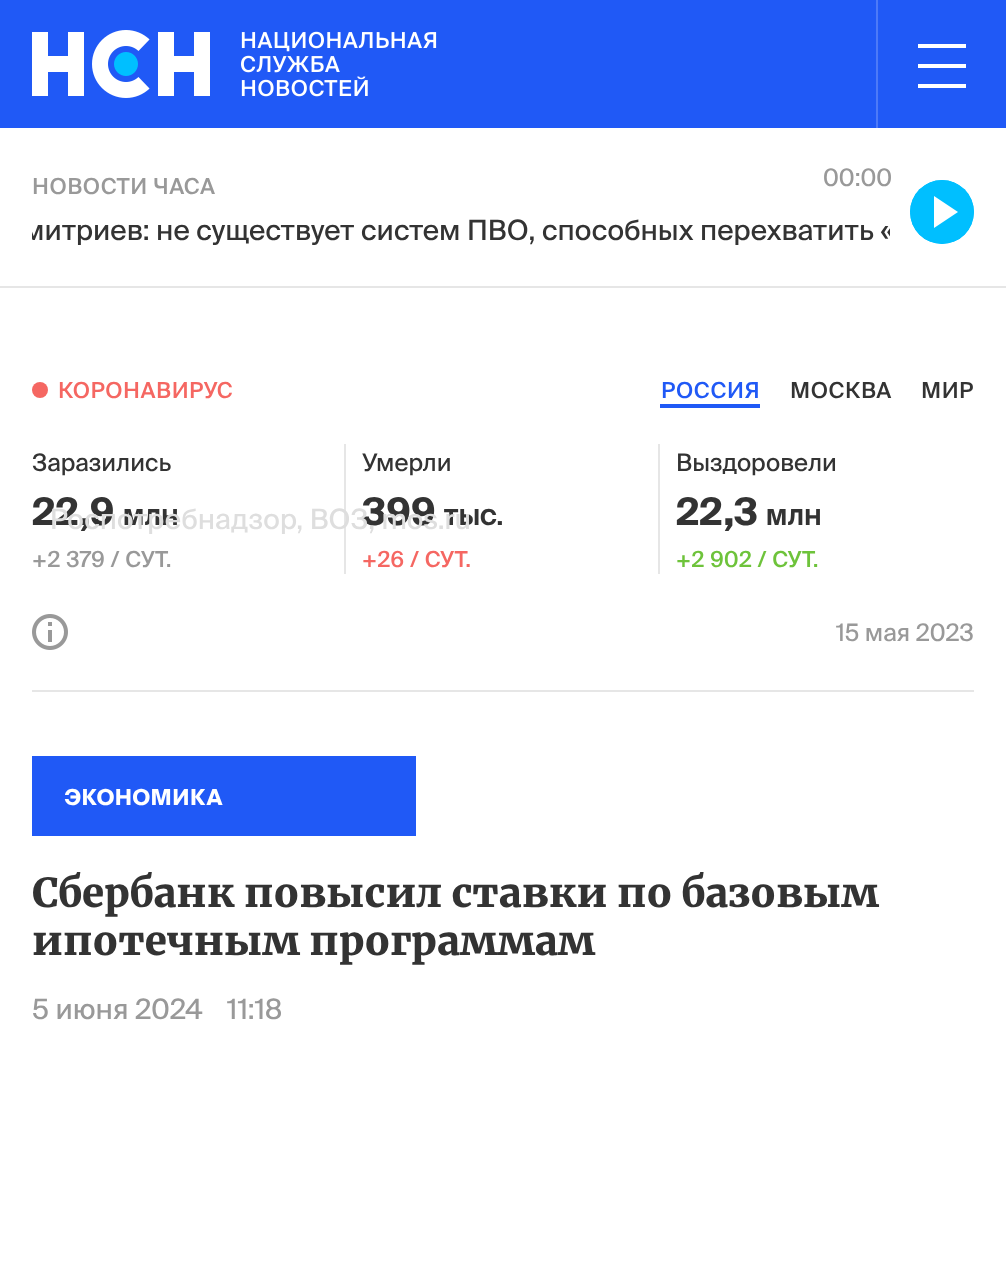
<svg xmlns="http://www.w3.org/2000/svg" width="1006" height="1265">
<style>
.a{font:500 22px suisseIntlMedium;letter-spacing:0.5px;fill:#999}
.b{font:24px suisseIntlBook;fill:#999}
.c{font:28px suisseIntlBook;fill:#333}
.d{font:500 22px suisseIntlMedium;letter-spacing:0.5px;fill:#f56762}
.e{font:500 22px suisseIntlMedium;letter-spacing:0.5px;fill:#2059f6}
.f{font:500 22px suisseIntlMedium;letter-spacing:0.5px;fill:#333}
.g{font:24px suisseIntlBook;fill:#333}
.h{font:bold 38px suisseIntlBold;fill:#333}
.i{font:bold 22px suisseIntlBold;letter-spacing:0.5px;fill:#333}
.j{font:500 22px suisseIntlMedium;letter-spacing:0.5px;fill:#6ec33b}
.k{font:28px suisseIntlBook;fill:#dedede}
.l{font:bold 22px suisseIntlBold;letter-spacing:0.5px;fill:#fff}
.m{font:900 40px Merriweather;fill:#333}
.n{font:28px suisseIntlBook;fill:#999}
</style>
<defs>
<clipPath id="clip1"><rect x="910" y="180" width="64" height="64" rx="32"/></clipPath>
<clipPath id="clip2"><path d="M32 210h858v40H32z"/></clipPath>
</defs>
<rect width="100%" height="100%" fill="#fff"/>
<path fill="#2059f6" d="M0 0h1006v128H0z"/>
<path fill="#4d7af8" d="M876 0h2v128H876z"/>
<image href="1.png" x="32" y="30" width="405" height="68"/>
<path fill="#fff" d="M918 44h48v4H918z"/>
<path fill="#fff" d="M918 64h48v4H918z"/>
<path fill="#fff" d="M918 84h48v4H918z"/>
<path fill="#e6e6e6" d="M0 286h1006v2H0z"/>
<circle fill="#00bfff" cx="942" cy="212" r="32"/>
<path fill="#fff" d="M958 212l-24 16v-32z"/>
<g clip-path="url(#clip1)">
<path fill="none" stroke="#00bfff" stroke-width="4" d="M912 212c0-16.5 13.5-30 30-30c16.5 0 30 13.5 30 30c0 16.5-13.5 30-30 30c-16.5 0-30-13-30-29.5"/>
</g>
<path fill="#e6e6e6" d="M32 690h942v2H32z"/>
<circle fill="#f56762" cx="40" cy="390" r="8"/>
<path fill="#2059f6" d="M660 404h100v4H660z"/>
<path fill="#e6e6e6" d="M344 444h2v130H344z"/>
<path fill="#e6e6e6" d="M658 444h2v130H658z"/>
<image href="2.png" x="32" y="614" width="36" height="36"/>
<path fill="#2059f6" d="M32 756h384v80H32z"/>
<text class="a" x="32" y="194">НОВОСТИ ЧАСА</text>
<text class="b" x="823" y="186">00:00</text>
<g clip-path="url(#clip2)">
<text class="c" x="23" y="240">митриев: не существует систем ПВО, способных перехватить «</text>
</g>
<text class="d" x="58" y="398">КОРОНАВИРУС</text>
<text class="e" x="661" y="398">РОССИЯ</text>
<text class="f" x="790" y="398">МОСКВА</text>
<text class="f" x="921" y="398">МИР</text>
<text class="g" x="32" y="471">Заразились</text>
<text class="h" x="32" y="525">22,9</text>
<text class="i" x="123" y="525">МЛН</text>
<text class="a" x="32" y="567">+2 379 / СУТ.</text>
<text class="g" x="362" y="471">Умерли</text>
<text class="h" x="362" y="525">399</text>
<text class="i" x="444" y="525">ТЫС.</text>
<text class="d" x="362" y="567">+26 / СУТ.</text>
<text class="g" x="676" y="471">Выздоровели</text>
<text class="h" x="676" y="525">22,3</text>
<text class="i" x="766" y="525">МЛН</text>
<text class="j" x="676" y="567">+2 902 / СУТ.</text>
<text class="k" x="50" y="529">Роспотребнадзор, ВОЗ, mos.ru</text>
<text class="b" x="836" y="641">15 мая 2023</text>
<text class="l" x="64" y="805">ЭКОНОМИКА</text>
<text class="m" x="32" y="907">Сбербанк повысил ставки по базовым</text>
<text class="m" x="32" y="955">ипотечным программам</text>
<text class="n" x="32" y="1019">5 июня 2024</text>
<text class="n" x="227" y="1019">11:18</text>
</svg>
